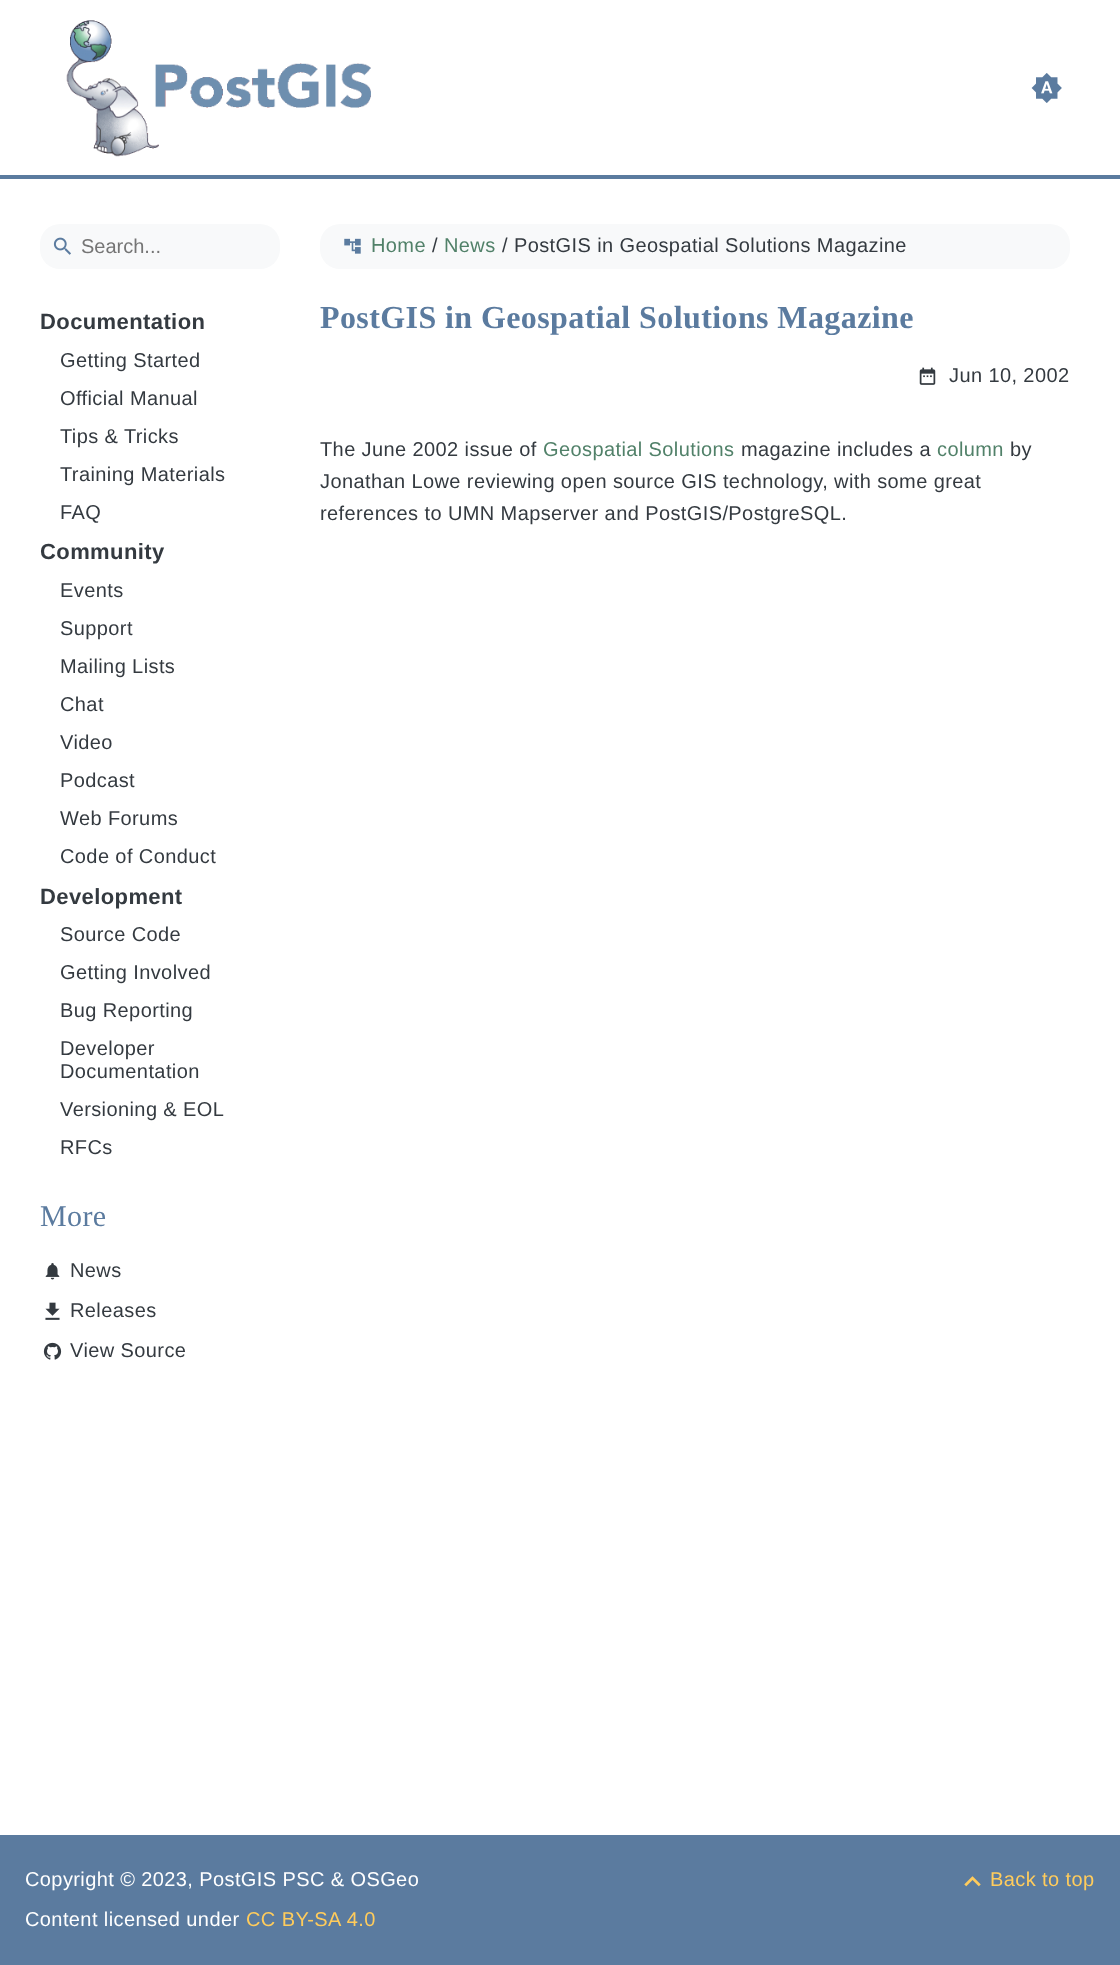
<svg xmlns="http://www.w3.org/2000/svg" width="1120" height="1965">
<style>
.a{font:20px Liberation Sans;fill:#757575}
.b{font:bold 22px Liberation Sans;letter-spacing:0.4px;fill:#343a40}
.c{font:20px Liberation Sans;letter-spacing:0.4px;fill:#343a40}
.d{font:30px Liberation Serif;letter-spacing:0.4px;fill:#5b7b9f}
.e{font:20px Liberation Sans;letter-spacing:0.4px;fill:#518169}
.f{font:bold 32px Liberation Serif;letter-spacing:0.4px;fill:#5b7b9f}
.g{font:20px Liberation Sans;letter-spacing:0.4px;fill:#fff}
.h{font:20px Liberation Sans;letter-spacing:0.4px;fill:#ffcc5c}
</style>
<rect width="100%" height="100%" fill="#fff"/>
<path fill="#5b7b9f" d="M0 175h1120v4H0z"/>
<image href="1.png" x="66" y="20" width="305" height="137"/>
<image href="2.png" x="1031" y="73" width="31" height="30"/>
<rect fill="#f8f9fa" x="40" y="224" width="240" height="45" rx="20"/>
<image href="3.png" x="53" y="237" width="18" height="18"/>
<image href="4.png" x="45" y="1263" width="15" height="17"/>
<image href="5.png" x="45" y="1302" width="15" height="18"/>
<image href="6.png" x="43" y="1342" width="19" height="18"/>
<rect fill="#f8f9fa" x="320" y="224" width="750" height="45" rx="20"/>
<image href="7.png" x="344" y="238" width="17" height="16"/>
<image href="8.png" x="919" y="367" width="17" height="18"/>
<path fill="#5b7b9f" d="M0 1835h1120v130H0z"/>
<image href="9.png" x="964" y="1876" width="17" height="11"/>
<text class="a" x="81" y="253">Search...</text>
<text class="b" x="40" y="329">Documentation</text>
<text class="c" x="60" y="367">Getting Started</text>
<text class="c" x="60" y="405">Official Manual</text>
<text class="c" x="60" y="443">Tips &amp; Tricks</text>
<text class="c" x="60" y="481">Training Materials</text>
<text class="c" x="60" y="519">FAQ</text>
<text class="b" x="40" y="559">Community</text>
<text class="c" x="60" y="597">Events</text>
<text class="c" x="60" y="635">Support</text>
<text class="c" x="60" y="673">Mailing Lists</text>
<text class="c" x="60" y="711">Chat</text>
<text class="c" x="60" y="749">Video</text>
<text class="c" x="60" y="787">Podcast</text>
<text class="c" x="60" y="825">Web Forums</text>
<text class="c" x="60" y="863">Code of Conduct</text>
<text class="b" x="40" y="904">Development</text>
<text class="c" x="60" y="941">Source Code</text>
<text class="c" x="60" y="979">Getting Involved</text>
<text class="c" x="60" y="1017">Bug Reporting</text>
<text class="c" x="60" y="1055">Developer</text>
<text class="c" x="60" y="1078">Documentation</text>
<text class="c" x="60" y="1116">Versioning &amp; EOL</text>
<text class="c" x="60" y="1154">RFCs</text>
<text class="d" x="40" y="1226">More</text>
<text class="c" x="70" y="1277">News</text>
<text class="c" x="70" y="1317">Releases</text>
<text class="c" x="70" y="1357">View Source</text>
<text class="e" x="371" y="252">Home</text>
<text class="c" x="432" y="252">/</text>
<text class="e" x="444" y="252">News</text>
<text class="c" x="502" y="252">/ PostGIS in Geospatial Solutions Magazine</text>
<text class="f" x="320" y="328">PostGIS in Geospatial Solutions Magazine</text>
<text class="c" x="949" y="382">Jun 10, 2002</text>
<text class="c" x="320" y="456">The June 2002 issue of</text>
<text class="e" x="543" y="456">Geospatial Solutions</text>
<text class="c" x="741" y="456">magazine includes a</text>
<text class="e" x="937" y="456">column</text>
<text class="c" x="1010" y="456">by</text>
<text class="c" x="320" y="488">Jonathan Lowe reviewing open source GIS technology, with some great</text>
<text class="c" x="320" y="520">references to UMN Mapserver and PostGIS/PostgreSQL.</text>
<text class="g" x="25" y="1886">Copyright © 2023, PostGIS PSC &amp; OSGeo</text>
<text class="g" x="25" y="1926">Content licensed under</text>
<text class="h" x="246" y="1926">CC BY-SA 4.0</text>
<text class="h" x="990" y="1886">Back to top</text>
</svg>
